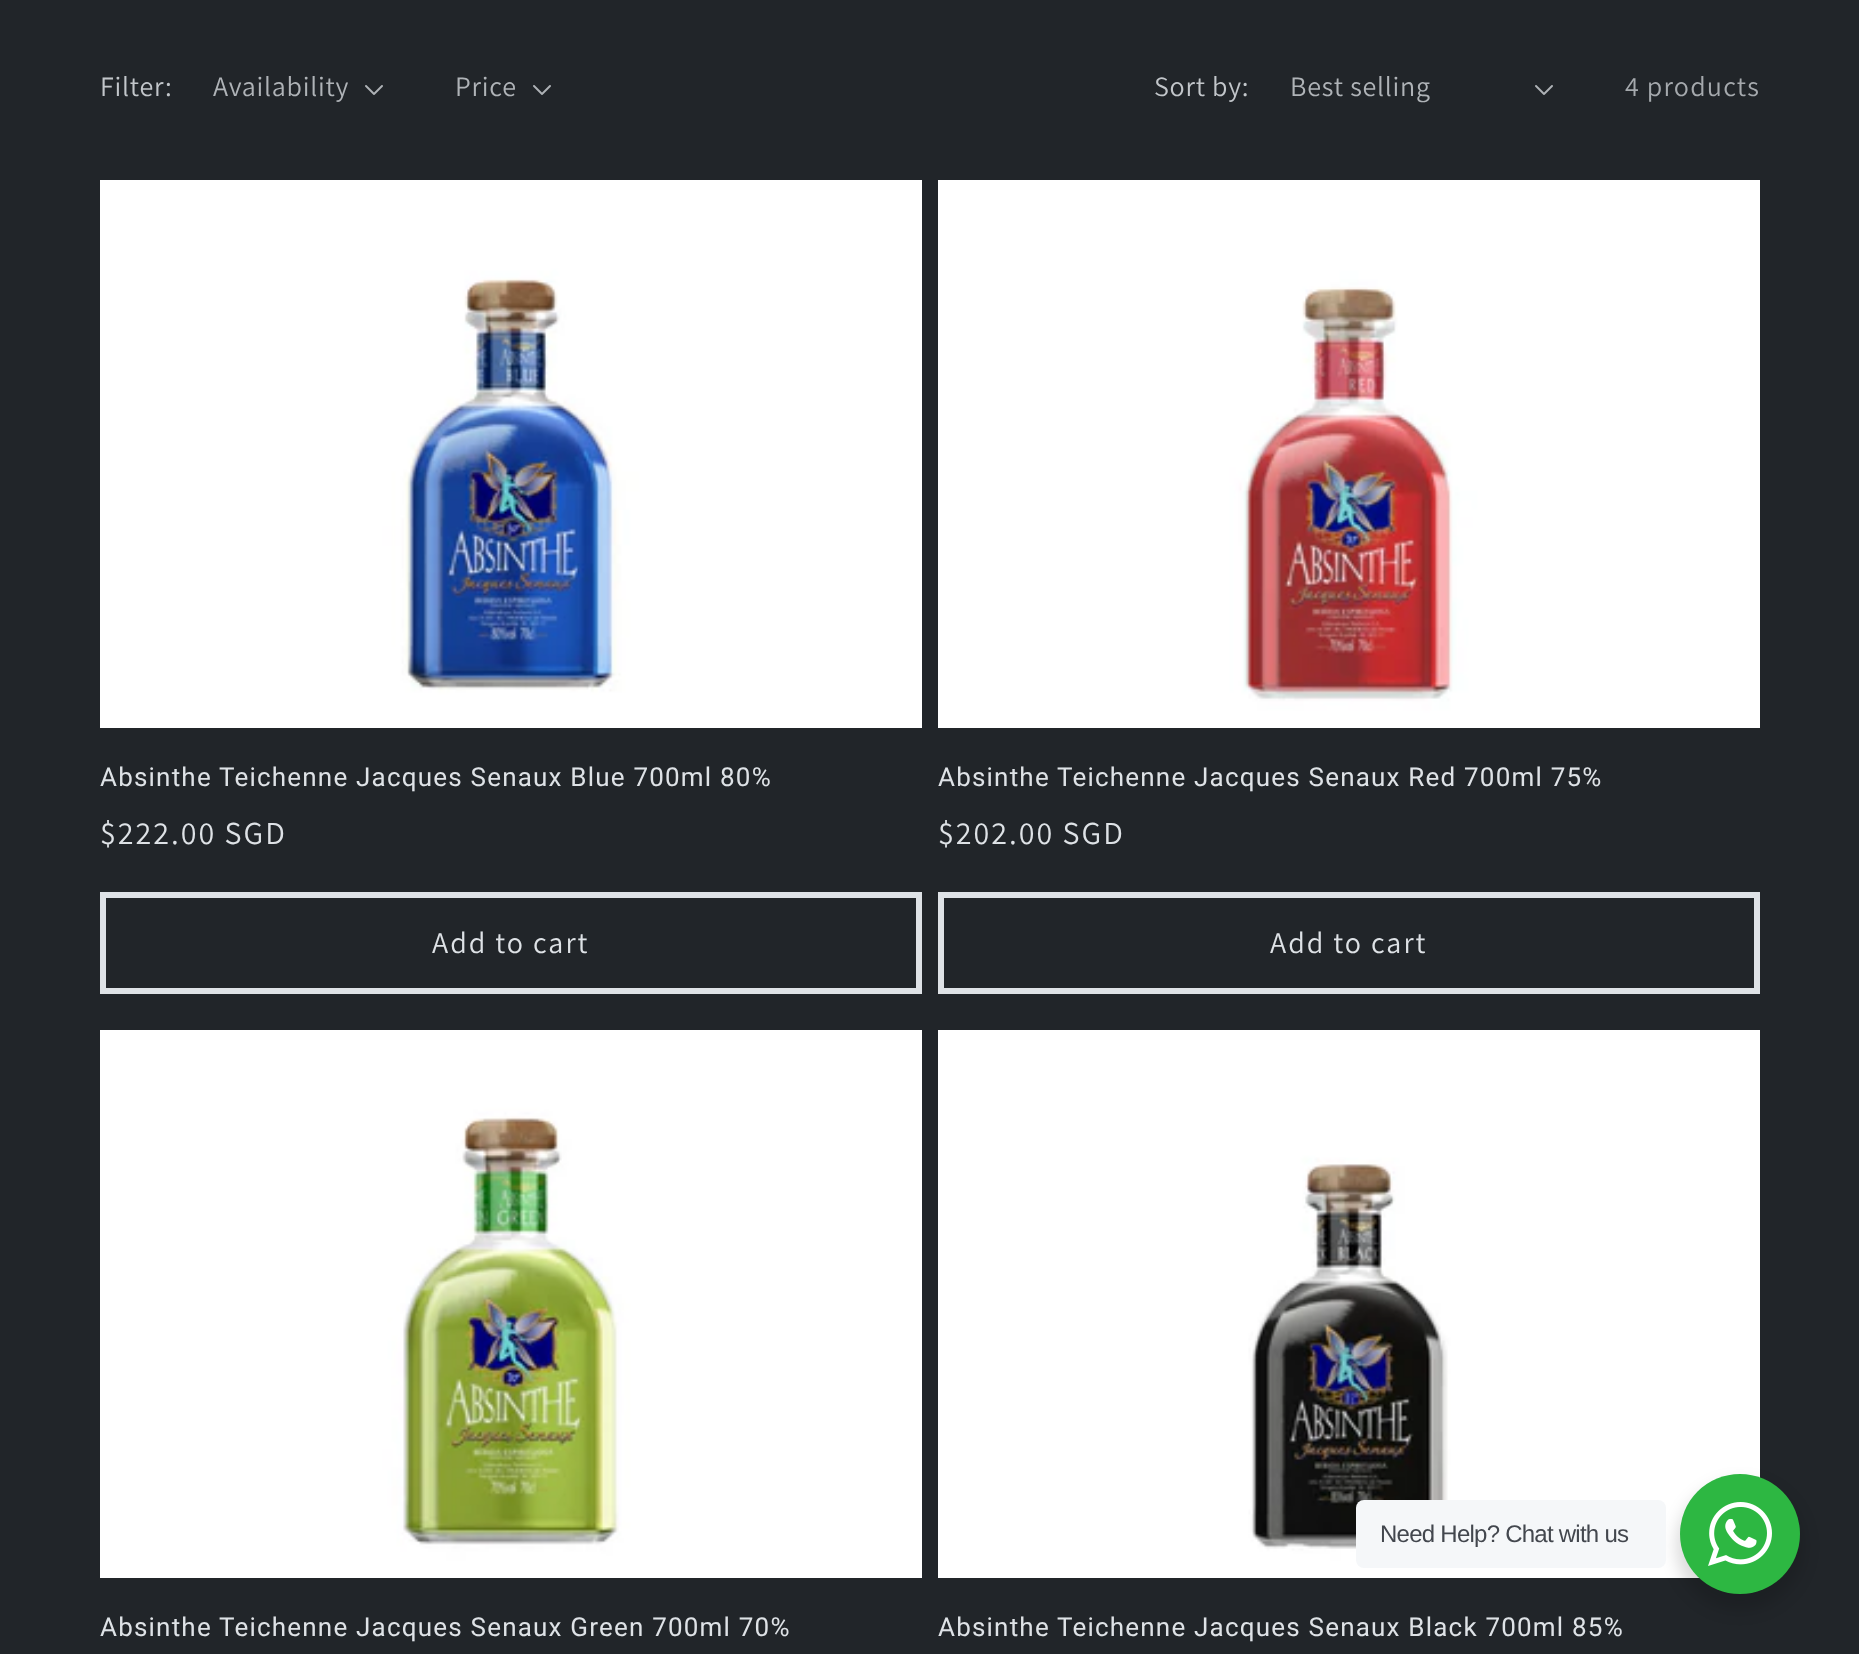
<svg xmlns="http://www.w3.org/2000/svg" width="1859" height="1654">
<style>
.a{font:28px Assistant;letter-spacing:0.75px;fill:#c2c6ca}
.b{font:28px Assistant;letter-spacing:0.75px;fill:#afb3b7}
.c{font:28px Assistant;letter-spacing:1.2px;fill:#a5a9ad}
.d{font:26px Roboto;letter-spacing:1.2px;fill:#dee2e6}
.e{font:32px Assistant;letter-spacing:2px;fill:#dee2e6}
.f{font:30px Assistant;letter-spacing:2px;fill:#dee2e6}
.g{font:24px Liberation Sans;letter-spacing:-0.75px;fill:#43474e}
</style>
<rect width="100%" height="100%" fill="#212529"/>
<image href="1.png" x="365" y="85" width="18" height="10"/>
<image href="1.png" x="533" y="85" width="18" height="10"/>
<image href="1.png" x="1535" y="85" width="18" height="10"/>
<image href="2.png" x="100" y="180" width="822" height="548"/>
<path fill="none" stroke="#dee2e6" stroke-width="6" d="M103 895h816v96H103z"/>
<image href="3.png" x="938" y="180" width="822" height="548"/>
<path fill="none" stroke="#dee2e6" stroke-width="6" d="M941 895h816v96H941z"/>
<image href="4.png" x="100" y="1030" width="822" height="548"/>
<image href="5.png" x="938" y="1030" width="822" height="548"/>
<rect fill="#00000024" filter="blur(8px)" x="1676" y="1482" width="128" height="128" rx="64"/>
<rect fill="#f5f7f9" x="1356" y="1500" width="310" height="68" rx="8"/>
<circle fill="#2db742" cx="1740" cy="1534" r="60"/>
<image href="6.png" x="1708" y="1502" width="64" height="64"/>
<text class="a" x="100" y="96">Filter:</text>
<text class="b" x="213" y="96">Availability</text>
<text class="b" x="455" y="96">Price</text>
<text class="a" x="1154" y="96">Sort by:</text>
<text class="b" x="1290" y="96">Best selling</text>
<text class="c" x="1625" y="96">4 products</text>
<text class="d" x="100" y="786">Absinthe Teichenne Jacques Senaux Blue 700ml 80%</text>
<text class="e" x="100" y="844">$222.00 SGD</text>
<text class="f" x="432" y="953">Add to cart</text>
<text class="d" x="938" y="786">Absinthe Teichenne Jacques Senaux Red 700ml 75%</text>
<text class="e" x="938" y="844">$202.00 SGD</text>
<text class="f" x="1270" y="953">Add to cart</text>
<text class="d" x="100" y="1636">Absinthe Teichenne Jacques Senaux Green 700ml 70%</text>
<text class="d" x="938" y="1636">Absinthe Teichenne Jacques Senaux Black 700ml 85%</text>
<text class="g" x="1380" y="1542">Need Help? Chat with us</text>
</svg>
